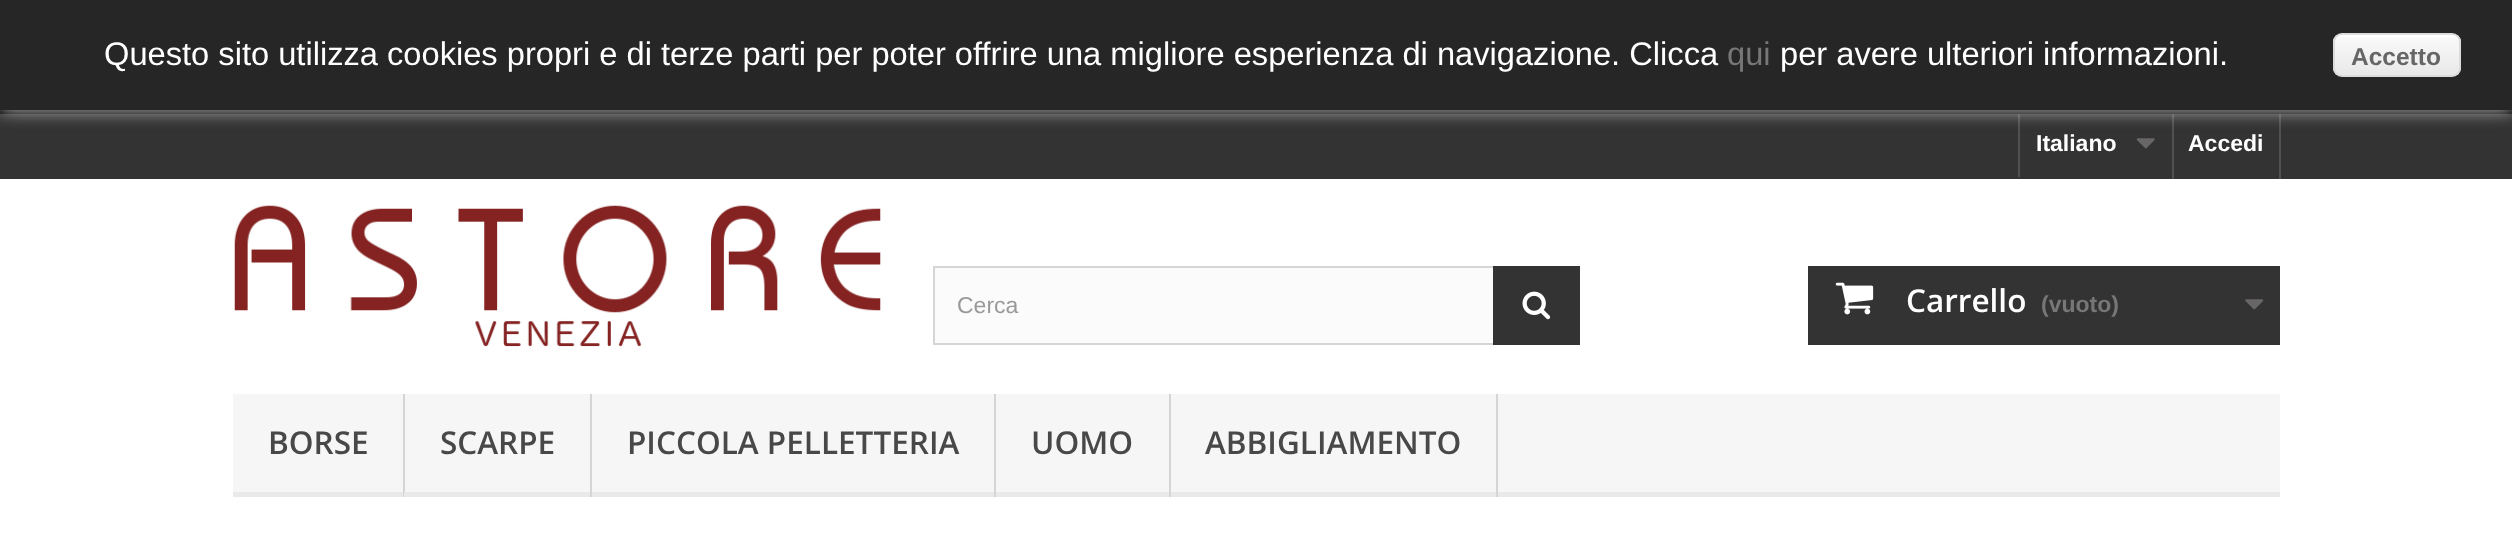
<svg xmlns="http://www.w3.org/2000/svg" width="2512" height="540">
<style>
.a{font:32.65px Liberation Sans;fill:#fff}
.b{font:32.65px Liberation Sans;fill:#777}
.c{font:bold 24.5px Liberation Sans;fill:#666}
.d{font:bold 23px Liberation Sans;fill:#fff}
.e{font:23px Liberation Sans;fill:#999}
.f{font:600 31.5px Open Sans;fill:#fff}
.g{font:bold 23px Liberation Sans;fill:#777}
.h{font:600 31.5px Open Sans;fill:#484848}
</style>
<defs>
<clipPath id="clip1"><rect x="2333" y="33" width="128" height="44" rx="9"/></clipPath>
<linearGradient id="g1" gradientUnits="userSpaceOnUse" x1="2335" y1="35" x2="2335" y2="75"><stop offset="0.05" stop-color="#f9f9f9"/><stop offset="1" stop-color="#e9e9e9"/></linearGradient>
</defs>
<rect width="100%" height="100%" fill="#fff"/>
<path fill="#000" d="M0 110h2512v4H0z"/>
<path fill="#333" d="M0 114h2512v65H0z"/>
<path fill="#515151" d="M2018 114h2v63H2018z"/>
<path fill="#515151" d="M2279 114h2v65H2279z"/>
<path fill="#515151" d="M2172 114h2v65H2172z"/>
<path fill="#d6d6d6" filter="blur(9px)" d="M0 0h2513v110H0z"/>
<path fill="#262626" d="M0 0h2512v110H0z"/>
<g clip-path="url(#clip1)">
<path fill="url(#g1)" d="M2333 35h128v40H2333z"/>
</g>
<path fill="#fff" d="M2342 37h110c4 0 7 3 7 7v-2c0-4-3-7-7-7h-110c-3 0-6 2-7 5c2-2 4-3 7-3z"/>
<rect fill="none" stroke="#dcdcdc" stroke-width="2" x="2334" y="34" width="126" height="42" rx="8"/>
<image href="1.png" x="2136" y="138" width="19" height="11"/>
<image href="2.png" x="234" y="205" width="647" height="142"/>
<path fill="#fbfbfb" d="M935 268h558v75H935z"/>
<path fill="none" stroke="#d6d4d4" stroke-width="2" d="M934 267h645v77H934z"/>
<path fill="#333" d="M1493 266h87v79H1493z"/>
<image href="3.png" x="1522" y="291" width="29" height="29"/>
<path fill="#333" d="M1808 266h472v79H1808z"/>
<image href="4.png" x="1835" y="282" width="39" height="33"/>
<image href="5.png" x="2245" y="299" width="19" height="11"/>
<path fill="#f6f6f6" d="M233 394h2047v98H233z"/>
<path fill="#e9e9e9" d="M233 492h2047v5H233z"/>
<path fill="#d6d4d4" d="M403 394h2v103H403z"/>
<path fill="#d6d4d4" d="M590 394h2v103H590z"/>
<path fill="#e9e9e9" d="M404 492h1v5H404z"/>
<path fill="#d6d4d4" d="M994 394h2v103H994z"/>
<path fill="#d6d4d4" d="M1169 394h2v103H1169z"/>
<path fill="#d6d4d4" d="M1496 394h2v103H1496z"/>
<text class="a" x="104" y="65">Questo sito utilizza cookies propri e di terze parti per poter offrire una migliore esperienza di navigazione. Clicca</text>
<text class="b" x="1727" y="65">qui</text>
<text class="a" x="1780" y="65">per avere ulteriori informazioni.</text>
<text class="c" x="2351" y="65">Accetto</text>
<text class="d" x="2036" y="151">Italiano</text>
<text class="d" x="2188" y="151">Accedi</text>
<text class="e" x="957" y="313">Cerca</text>
<text class="f" x="1906" y="312">Carrello</text>
<text class="g" x="2041" y="312">(vuoto)</text>
<text class="h" x="268" y="454">BORSE</text>
<text class="h" x="440" y="454">SCARPE</text>
<text class="h" x="627" y="454">PICCOLA PELLETTERIA</text>
<text class="h" x="1031" y="454">UOMO</text>
<text class="h" x="1205" y="454">ABBIGLIAMENTO</text>
</svg>
